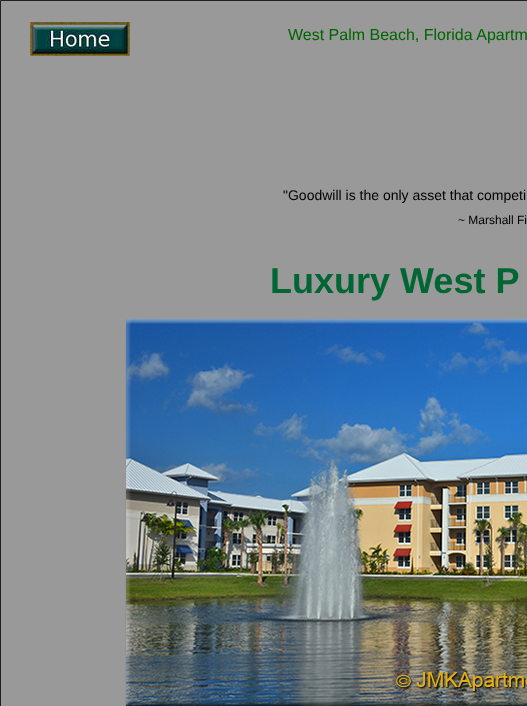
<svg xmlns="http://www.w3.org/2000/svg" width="527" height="706">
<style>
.a{font:16px Liberation Sans;fill:#006400}
.b{font:14px Liberation Sans;fill:#000}
.c{font:12px Liberation Sans;fill:#000}
.d{font:bold 36px Liberation Sans;fill:#063}
</style>
<rect width="100%" height="100%" fill="#999"/>
<path fill="none" stroke="#1f1f1f" d="M0.5 0.5h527v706H0.5z"/>
<image href="1.png" x="30" y="22" width="100" height="34"/>
<image href="2.png" x="125" y="319" width="402" height="387"/>
<text class="a" x="288" y="40">West Palm Beach, Florida Apartm</text>
<text class="b" x="283" y="200">"Goodwill is the only asset that competi</text>
<text class="c" x="458" y="224">~ Marshall Fi</text>
<text class="d" x="270" y="293">Luxury West P</text>
</svg>
